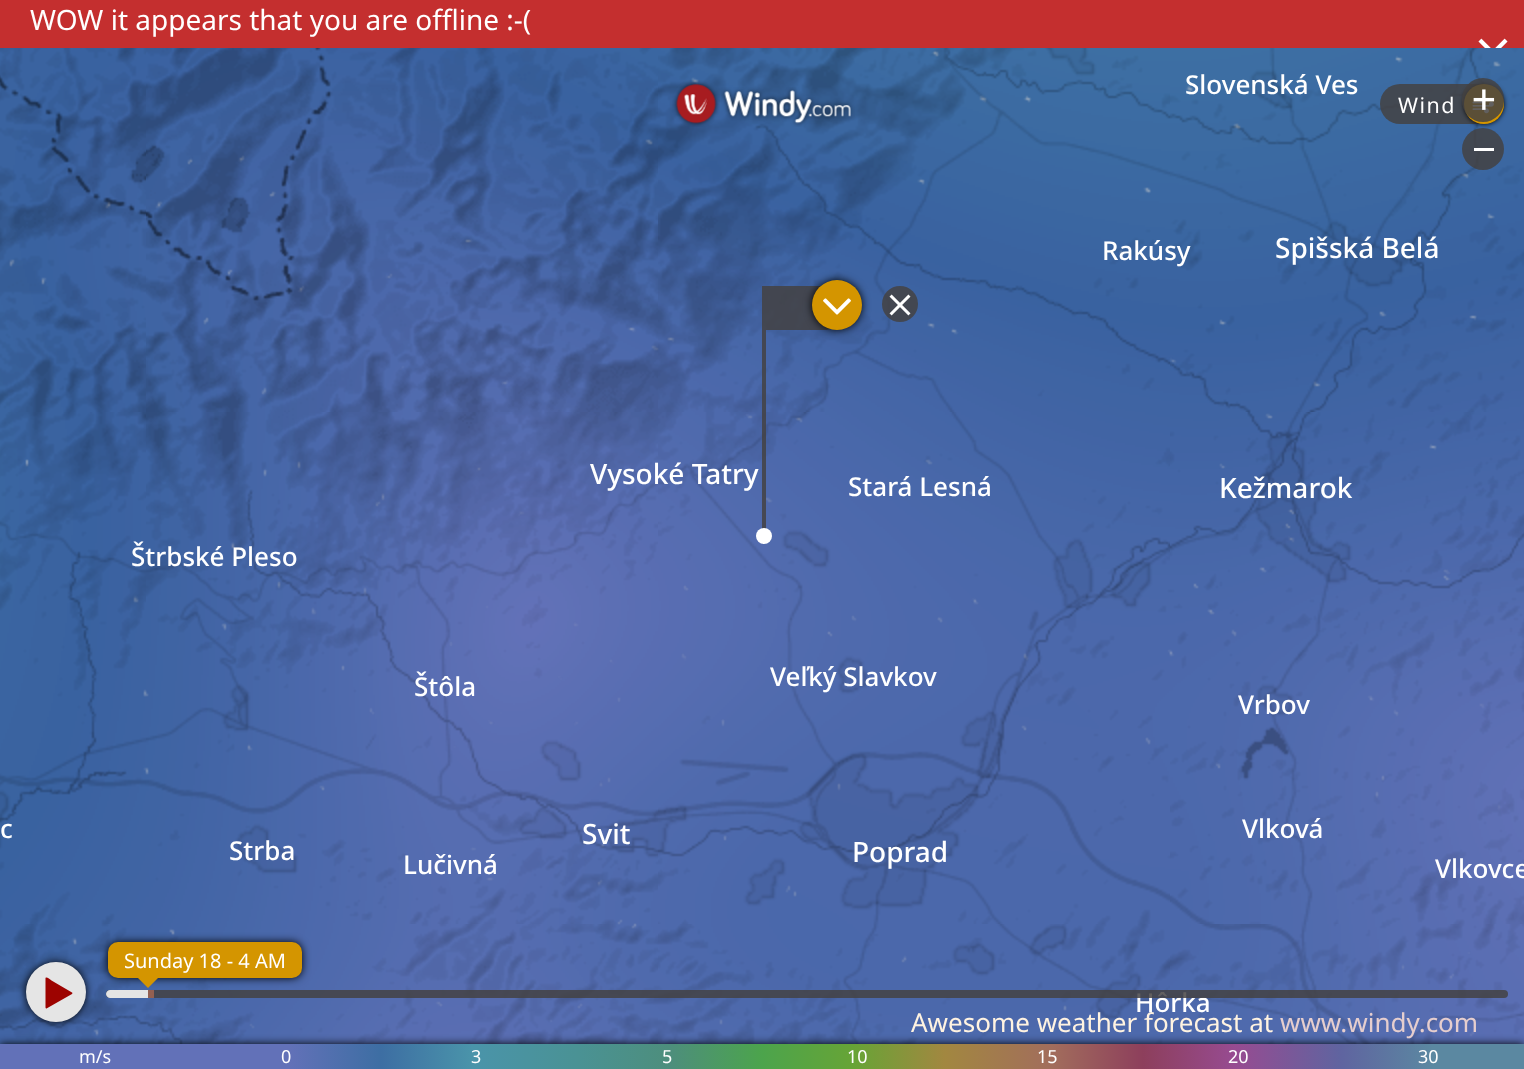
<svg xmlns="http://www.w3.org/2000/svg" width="1524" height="1069">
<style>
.a{font:28px Noto Sans;fill:#fff}
.b{font:500 26px Noto Sans;fill:#fff}
.c{font:500 28px Noto Sans;fill:#fff}
.d{font:21.5px Noto Sans;letter-spacing:1.5px;fill:#fff}
.e{font:20px Noto Sans;fill:#fff}
.f{font:26px Noto Sans;fill:#fff3e1}
.g{font:26px Noto Sans;fill:#e6cece}
.h{font:18px Noto Sans;fill:#fff}
</style>
<defs>
<linearGradient id="g1" gradientUnits="userSpaceOnUse" x1="0" y1="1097" x2="1524" y2="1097"><stop offset="0" stop-color="#6271b8"/><stop offset="0.19" stop-color="#6271b8"/><stop offset="0.25" stop-color="#3d6ea3"/><stop offset="0.31" stop-color="#4a94aa"/><stop offset="0.38" stop-color="#4a9294"/><stop offset="0.44" stop-color="#4d8e7c"/><stop offset="0.5" stop-color="#4ca44c"/><stop offset="0.56" stop-color="#67a436"/><stop offset="0.62" stop-color="#a28740"/><stop offset="0.69" stop-color="#a26d5c"/><stop offset="0.75" stop-color="#8d3f5c"/><stop offset="0.81" stop-color="#974b91"/><stop offset="0.88" stop-color="#5f64a0"/><stop offset="0.94" stop-color="#5b88a1"/><stop offset="1" stop-color="#5b88a1"/></linearGradient>
</defs>
<rect width="100%" height="100%" fill="#fff"/>
<path fill="#c42f2f" d="M0 0h1524v48H0z"/>
<image href="1.png" x="1478" y="38" width="30" height="10"/>
<image href="2.png" x="0" y="48" width="146" height="364"/>
<image href="3.png" x="146" y="48" width="512" height="364"/>
<image href="4.png" x="658" y="48" width="512" height="364"/>
<image href="5.png" x="1170" y="48" width="354" height="364"/>
<image href="6.png" x="0" y="412" width="146" height="512"/>
<image href="7.png" x="146" y="412" width="512" height="512"/>
<image href="8.png" x="658" y="412" width="512" height="512"/>
<image href="9.png" x="1170" y="412" width="354" height="512"/>
<image href="10.png" x="0" y="924" width="146" height="120"/>
<image href="11.png" x="146" y="924" width="512" height="120"/>
<image href="12.png" x="658" y="924" width="512" height="120"/>
<image href="13.png" x="1170" y="924" width="354" height="120"/>
<image href="26.png" x="9" y="50" width="1492" height="987"/>
<image href="14.png" x="0" y="48" width="146" height="364"/>
<image href="15.png" x="146" y="48" width="512" height="364"/>
<image href="16.png" x="658" y="48" width="512" height="364"/>
<image href="17.png" x="1170" y="48" width="354" height="364"/>
<image href="18.png" x="0" y="412" width="146" height="512"/>
<image href="19.png" x="146" y="412" width="512" height="512"/>
<image href="20.png" x="658" y="412" width="512" height="512"/>
<image href="21.png" x="1170" y="412" width="354" height="512"/>
<image href="22.png" x="0" y="924" width="146" height="120"/>
<image href="23.png" x="146" y="924" width="512" height="120"/>
<image href="24.png" x="658" y="924" width="512" height="120"/>
<image href="25.png" x="1170" y="924" width="354" height="120"/>
<path fill="#444141d6" d="M762 286h4v250H762z"/>
<circle fill="#fff" cx="764" cy="536" r="8"/>
<path fill="#444141d6" d="M766 286h58c12 0 22 10 22 22c0 12-10 22-22 22h-58z"/>
<rect fill="#000" filter="blur(4px)" x="812" y="280" width="50" height="50" rx="25"/>
<circle fill="#d49500" cx="837" cy="305" r="25"/>
<image href="27.png" x="823" y="298" width="28" height="17"/>
<circle fill="#444141d6" cx="900" cy="304" r="18"/>
<image href="28.png" x="889" y="294" width="22" height="22"/>
<image href="29.png" x="672" y="80" width="48" height="47"/>
<image href="30.png" x="721" y="87" width="134" height="40"/>
<rect fill="#444141d6" x="1380" y="84" width="124" height="40" rx="20"/>
<rect fill="#000" filter="blur(2.5px)" x="1464" y="84" width="40" height="40" rx="20"/>
<circle fill="#d49500" cx="1484" cy="104" r="20"/>
<image href="31.png" x="1472" y="101" width="22" height="13"/>
<rect fill="#444141d6" x="1462" y="78" width="42" height="44" rx="21"/>
<image href="32.png" x="1473" y="89" width="22" height="21"/>
<circle fill="#444141d6" cx="1483" cy="149" r="21"/>
<path fill="#fff" d="M1474 148h20v3H1474z"/>
<rect fill="#000" filter="blur(4px)" x="26" y="962" width="60" height="60" rx="30"/>
<circle fill="#e5e5e5" cx="56" cy="992" r="30"/>
<path fill="#9d0300" d="M72.5 993l-.5-.5l-20.5-12c-2-1.5-5-4-6-2.5v29.5c0 .5 .5 1 1 1l25.5-14.5z"/>
<rect fill="#000" filter="blur(4px)" x="108" y="942" width="194" height="36" rx="10"/>
<rect fill="#d49500" x="108" y="942" width="194" height="36" rx="10"/>
<path fill="#d49500" d="M138 978h20l-10 10z"/>
<path fill="#000" filter="blur(4px)" d="M0 1044h1524v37H0z"/>
<path fill="url(#g1)" d="M0 1044h1524v25H0z"/>
<text class="a" x="30" y="30">WOW it appears that you are offline :-(</text>
<text class="b" x="1102" y="260">Rakúsy</text>
<text class="b" x="1185" y="94">Slovenská Ves</text>
<text class="c" x="1275" y="258">Spišská Belá</text>
<text class="b" x="0" y="838">c</text>
<text class="b" x="131" y="566">Štrbské Pleso</text>
<text class="b" x="414" y="696">Štôla</text>
<text class="c" x="582" y="844">Svit</text>
<text class="b" x="229" y="860">Strba</text>
<text class="b" x="403" y="874">Lučivná</text>
<text class="c" x="590" y="484">Vysoké Tatry</text>
<text class="b" x="848" y="496">Stará Lesná</text>
<text class="b" x="770" y="686">Veľký Slavkov</text>
<text class="c" x="852" y="862">Poprad</text>
<text class="c" x="1219" y="498">Kežmarok</text>
<text class="b" x="1238" y="714">Vrbov</text>
<text class="b" x="1242" y="838">Vlková</text>
<text class="b" x="1435" y="878">Vlkovce</text>
<text class="b" x="1135" y="1012">Hôrka</text>
<text class="d" x="1398" y="113">Wind</text>
<text class="e" x="124" y="968">Sunday 18 - 4 AM</text>
<rect fill="#444141d6" x="106" y="990" width="1402" height="8" rx="4"/>
<path fill="#e5e5e5" d="M110 990h38v8h-38c-2 0-4-2-4-4c0-2 2-4 4-4z"/>
<path fill="#946051" d="M148 990h6v8H148z"/>
<text class="f" x="911" y="1032">Awesome weather forecast at</text>
<text class="g" x="1280" y="1032">www.windy.com</text>
<text class="h" x="79" y="1063">m/s</text>
<text class="h" x="281" y="1063">0</text>
<text class="h" x="471" y="1063">3</text>
<text class="h" x="662" y="1063">5</text>
<text class="h" x="847" y="1063">10</text>
<text class="h" x="1037" y="1063">15</text>
<text class="h" x="1228" y="1063">20</text>
<text class="h" x="1418" y="1063">30</text>
</svg>
